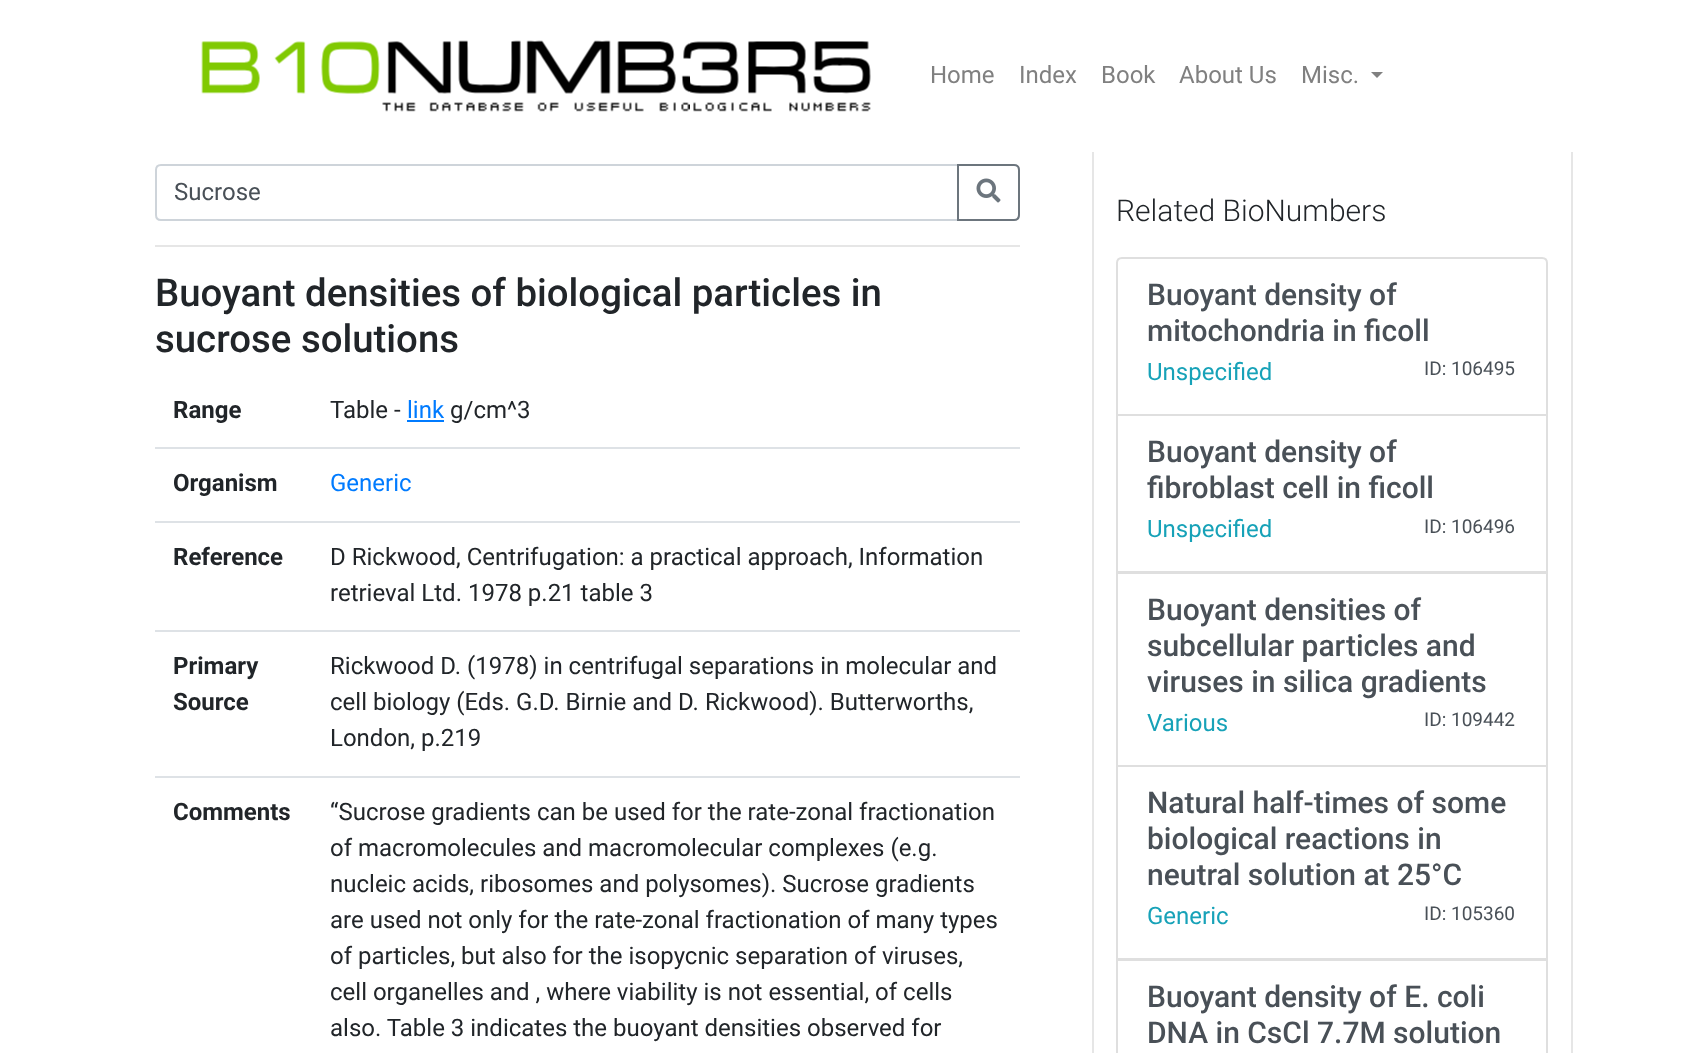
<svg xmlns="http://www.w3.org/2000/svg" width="1704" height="1053">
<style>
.a{font:24px Roboto;fill:#808080}
.b{font:24px Roboto;fill:#495057}
.c{font:500 38.4px Roboto;fill:#212529}
.d{font:bold 24px Roboto;fill:#212529}
.e{font:24px Roboto;fill:#212529}
.f{font:24px Roboto;fill:#007bff}
.g{font:300 30px Roboto;fill:#212529}
.h{font:500 30px Roboto;fill:#495057}
.i{font:24px Roboto;fill:#17a2b8}
.j{font:19px Roboto;fill:#495057}
</style>
<rect width="100%" height="100%" fill="#fff"/>
<image href="1.png" x="201" y="40" width="670" height="72"/>
<path fill="#808080" d="M1371 72h12l-6 6z"/>
<path fill="none" stroke="#ced4da" stroke-width="2" d="M161 165h797v55h-797c-3 0-5-2-5-5v-45c0-3 2-5 5-5z"/>
<path fill="none" stroke="#6c757d" stroke-width="2" d="M958 165h56c3 0 5 2 5 5v45c0 3-2 5-5 5h-56z"/>
<image href="2.png" x="976" y="178" width="25" height="25"/>
<path fill="#e6e6e6" d="M155 245h865v2H155z"/>
<path fill="#007bff" d="M407 420h37v2H407z"/>
<path fill="#dee2e6" d="M155 447h865v2H155z"/>
<path fill="#dee2e6" d="M155 521h865v2H155z"/>
<path fill="#dee2e6" d="M155 630h865v2H155z"/>
<path fill="#dee2e6" d="M155 776h865v2H155z"/>
<path fill="#e6e6e6" d="M1571 152h2v901H1571z"/>
<path fill="#e6e6e6" d="M1092 152h2v901H1092z"/>
<path fill="none" stroke="#dfdfdf" stroke-width="2" d="M1122 258h420c3 0 5 2 5 5v152h-430v-152c0-3 2-5 5-5z"/>
<path fill="none" stroke="#dfdfdf" stroke-width="2" d="M1117 415h430v157H1117z"/>
<path fill="none" stroke="#dfdfdf" stroke-width="2" d="M1117 573h430v193H1117z"/>
<path fill="none" stroke="#dfdfdf" stroke-width="2" d="M1117 766h430v193H1117z"/>
<path fill="none" stroke="#dfdfdf" stroke-width="2" d="M1117 960h430v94H1117z"/>
<text class="a" x="930" y="83">Home</text>
<text class="a" x="1019" y="83">Index</text>
<text class="a" x="1101" y="83">Book</text>
<text class="a" x="1179" y="83">About Us</text>
<text class="a" x="1301" y="83">Misc.</text>
<text class="b" x="174" y="200">Sucrose</text>
<text class="c" x="155" y="306">Buoyant densities of biological particles in</text>
<text class="c" x="155" y="352">sucrose solutions</text>
<text class="d" x="173" y="418">Range</text>
<text class="e" x="330" y="418">Table -</text>
<text class="f" x="407" y="418">link</text>
<text class="e" x="450" y="418">g/cm^3</text>
<text class="d" x="173" y="491">Organism</text>
<text class="f" x="330" y="491">Generic</text>
<text class="d" x="173" y="565">Reference</text>
<text class="e" x="330" y="565">D Rickwood, Centrifugation: a practical approach, Information</text>
<text class="e" x="330" y="601">retrieval Ltd. 1978 p.21 table 3</text>
<text class="d" x="173" y="674">Primary</text>
<text class="d" x="173" y="710">Source</text>
<text class="e" x="330" y="674">Rickwood D. (1978) in centrifugal separations in molecular and</text>
<text class="e" x="330" y="710">cell biology (Eds. G.D. Birnie and D. Rickwood). Butterworths,</text>
<text class="e" x="330" y="746">London, p.219</text>
<text class="d" x="173" y="820">Comments</text>
<text class="e" x="330" y="820">“Sucrose gradients can be used for the rate-zonal fractionation</text>
<text class="e" x="330" y="856">of macromolecules and macromolecular complexes (e.g.</text>
<text class="e" x="330" y="892">nucleic acids, ribosomes and polysomes). Sucrose gradients</text>
<text class="e" x="330" y="928">are used not only for the rate-zonal fractionation of many types</text>
<text class="e" x="330" y="964">of particles, but also for the isopycnic separation of viruses,</text>
<text class="e" x="330" y="1000">cell organelles and , where viability is not essential, of cells</text>
<text class="e" x="330" y="1036">also. Table 3 indicates the buoyant densities observed for</text>
<text class="g" x="1116" y="221">Related BioNumbers</text>
<text class="h" x="1147" y="305">Buoyant density of</text>
<text class="h" x="1147" y="341">mitochondria in ficoll</text>
<text class="i" x="1147" y="380">Unspecified</text>
<text class="j" x="1424" y="375">ID: 106495</text>
<text class="h" x="1147" y="462">Buoyant density of</text>
<text class="h" x="1147" y="498">fibroblast cell in ficoll</text>
<text class="i" x="1147" y="537">Unspecified</text>
<text class="j" x="1424" y="533">ID: 106496</text>
<text class="h" x="1147" y="620">Buoyant densities of</text>
<text class="h" x="1147" y="656">subcellular particles and</text>
<text class="h" x="1147" y="692">viruses in silica gradients</text>
<text class="i" x="1147" y="731">Various</text>
<text class="j" x="1424" y="726">ID: 109442</text>
<text class="h" x="1147" y="813">Natural half-times of some</text>
<text class="h" x="1147" y="849">biological reactions in</text>
<text class="h" x="1147" y="885">neutral solution at 25°C</text>
<text class="i" x="1147" y="924">Generic</text>
<text class="j" x="1424" y="920">ID: 105360</text>
<text class="h" x="1147" y="1007">Buoyant density of E. coli</text>
<text class="h" x="1147" y="1043">DNA in CsCl 7.7M solution</text>
</svg>
